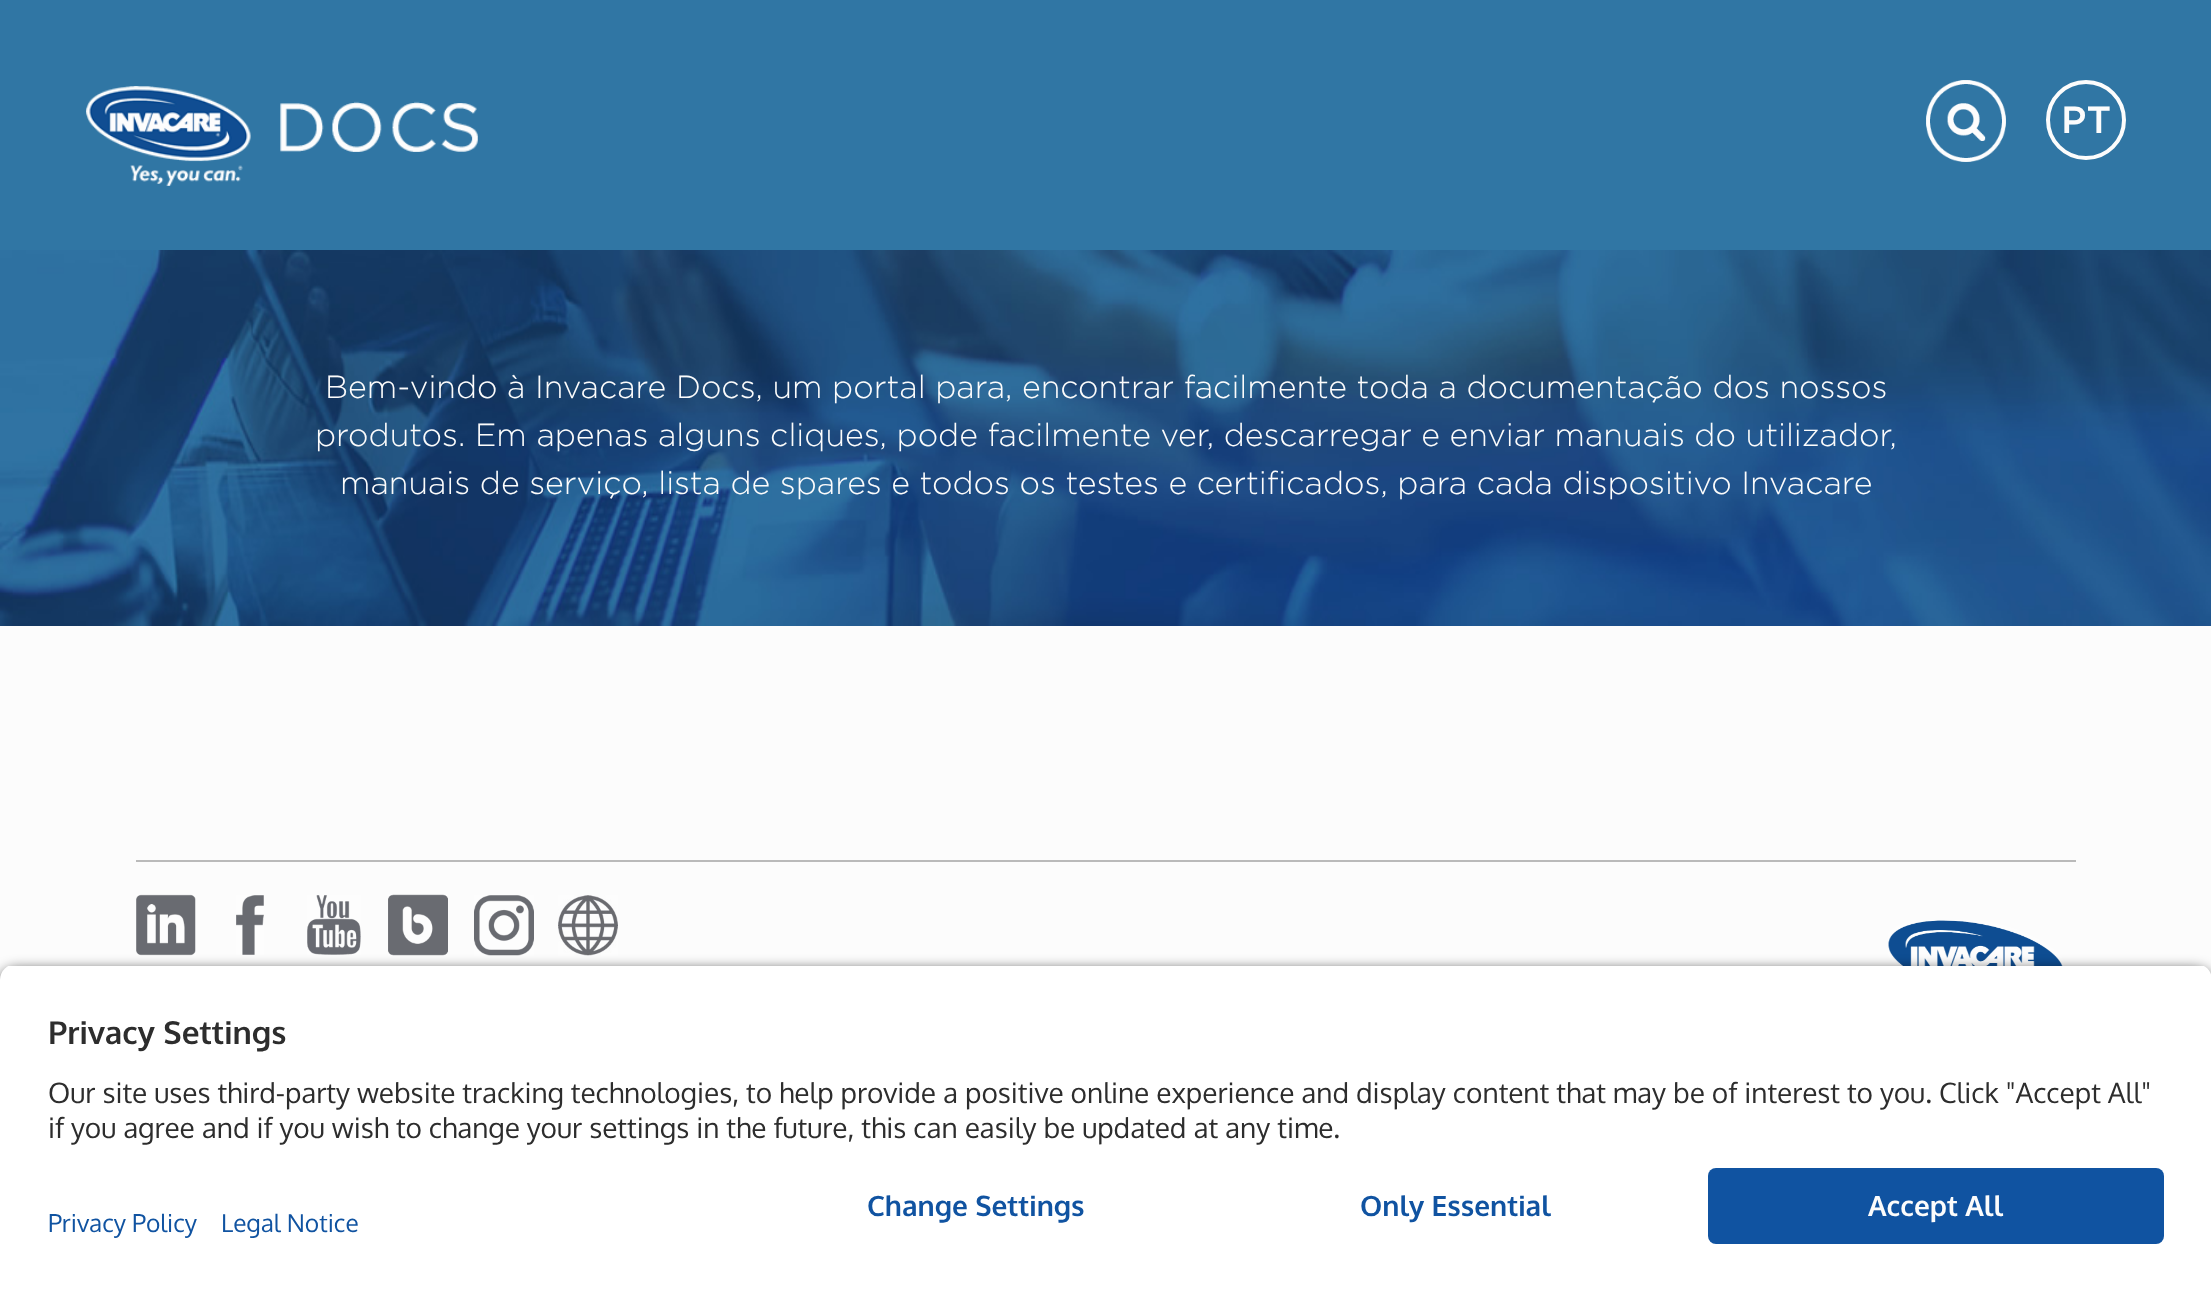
<svg xmlns="http://www.w3.org/2000/svg" width="2211" height="1291">
<style>
.a{font:500 38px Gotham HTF;fill:#fcfcfc}
.b{font:300 32px Gotham HTF;fill:#fcfcfc}
.c{font:bold 31.5px Oxygen;fill:#2d2d2d}
.d{font:28px Oxygen;fill:#2d2d2d}
.e{font:bold 28px Oxygen;fill:#1053a1}
.f{font:bold 28px Oxygen;fill:#fcfcfc}
.g{font:24.5px Oxygen;fill:#1053a1}
</style>
<defs>
<clipPath id="clip1"><path d="M16 964h2180c9 0 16 7 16 16v172h-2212v-172c0-9 7-16 16-16z"/></clipPath>
</defs>
<rect width="100%" height="100%" fill="#fcfcfc"/>
<path fill="#3076a4" d="M0 0h2211v250H0z"/>
<image href="1.png" x="86" y="86" width="392" height="100"/>
<image href="2.png" x="1926" y="80" width="80" height="82"/>
<circle fill="none" stroke="#fcfcfc" stroke-width="4" cx="2086" cy="120" r="38"/>
<image href="3.png" x="0" y="250" width="2211" height="376"/>
<path fill="#bababa" d="M136 860h1940v2H136z"/>
<image href="4.png" x="136" y="894" width="60" height="62"/>
<image href="5.png" x="236" y="895" width="28" height="60"/>
<image href="6.png" x="307" y="895" width="54" height="60"/>
<image href="7.png" x="388" y="894" width="60" height="62"/>
<image href="8.png" x="474" y="895" width="60" height="61"/>
<image href="9.png" x="558" y="895" width="60" height="61"/>
<image href="10.png" x="1888" y="920" width="176" height="46"/>
<rect fill="#000000cc" filter="blur(7px)" y="970" width="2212" height="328" rx="16"/>
<g clip-path="url(#clip1)">
<path fill="#fff" d="M0 966h2211v186H0z"/>
</g>
<path fill="#fff" d="M0 1152h2211v139H0z"/>
<rect fill="#1053a1" x="1708" y="1168" width="456" height="76" rx="8"/>
<text class="a" x="2061" y="133">PT</text>
<text class="b" x="325" y="398">Bem-vindo à Invacare Docs, um portal para, encontrar facilmente toda a documentação dos nossos</text>
<text class="b" x="315" y="446">produtos. Em apenas alguns cliques, pode facilmente ver, descarregar e enviar manuais do utilizador,</text>
<text class="b" x="340" y="494">manuais de serviço, lista de spares e todos os testes e certificados, para cada dispositivo Invacare</text>
<text class="c" x="48" y="1044">Privacy Settings</text>
<text class="d" x="48" y="1103">Our site uses third-party website tracking technologies, to help provide a positive online experience and display content that may be of interest to you. Click "Accept All"</text>
<text class="d" x="48" y="1138">if you agree and if you wish to change your settings in the future, this can easily be updated at any time.</text>
<text class="e" x="867" y="1216">Change Settings</text>
<text class="e" x="1360" y="1216">Only Essential</text>
<text class="f" x="1868" y="1216">Accept All</text>
<text class="g" x="48" y="1232">Privacy Policy</text>
<text class="g" x="221" y="1232">Legal Notice</text>
</svg>
